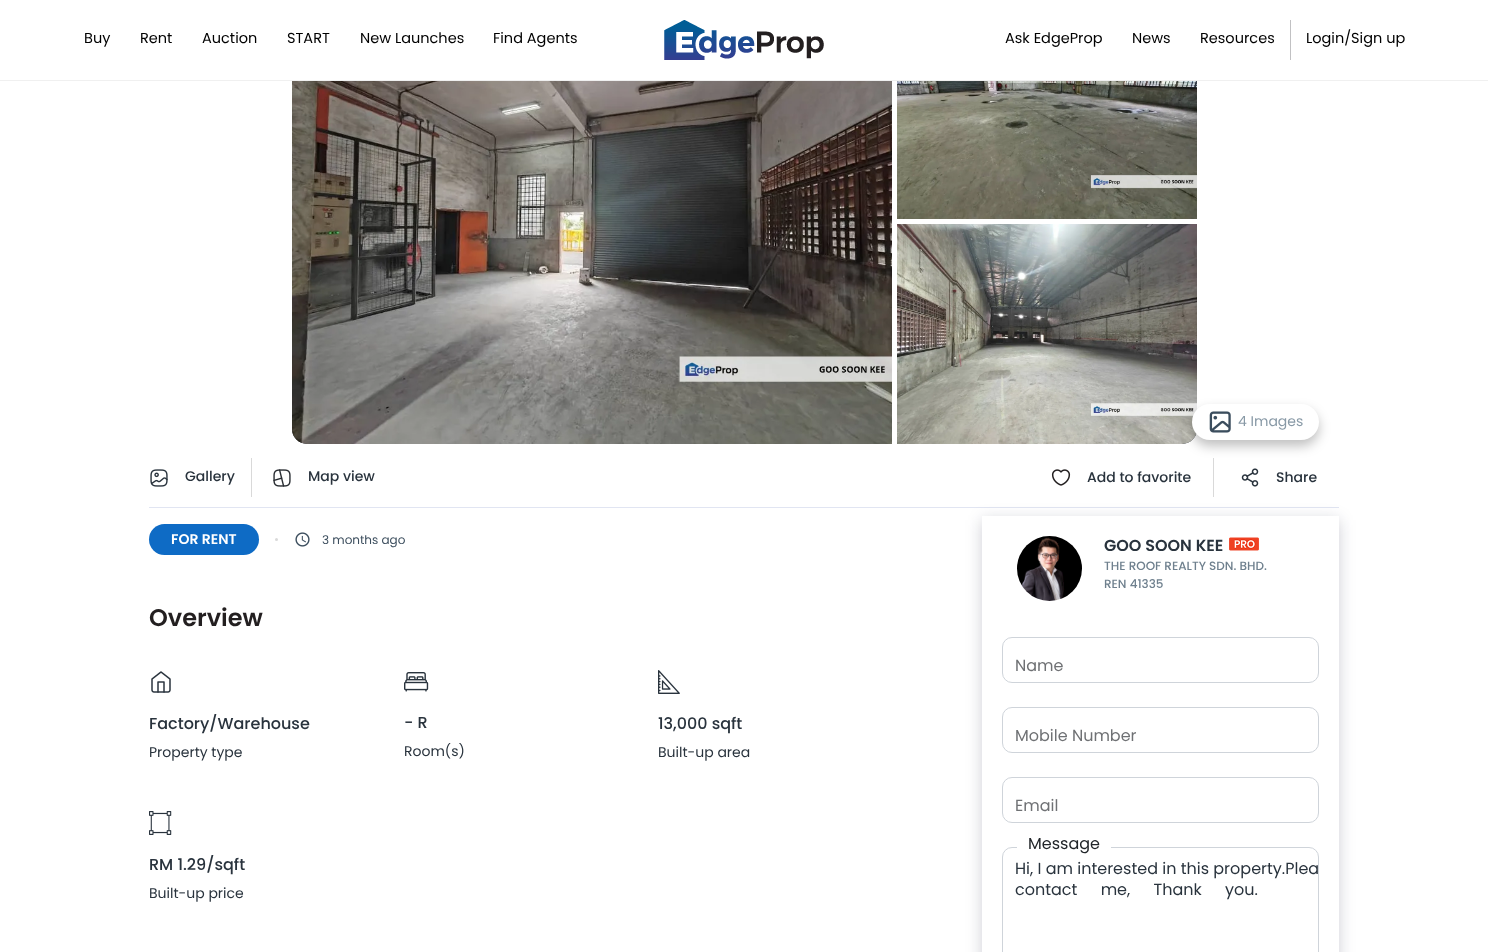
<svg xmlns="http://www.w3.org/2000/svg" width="1488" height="952">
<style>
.a{font:14.5px Poppins;fill:#000}
.b{font:14px Poppins;fill:#8899a6}
.c{font:500 14px Poppins;fill:#29333d}
.d{font:600 14px Poppins;fill:#fff}
.e{font:12px Poppins;fill:#3b4d5d}
.f{font:600 24px Poppins;fill:#231f20}
.g{font:500 16px Poppins;fill:#29333d}
.h{font:14px Poppins;fill:#29333d}
.i{font:600 16px Poppins;fill:#29333d}
.j{font:500 12px Poppins;fill:#6f808e}
.k{font:16px Poppins;fill:#6f7174}
.l{font:16px Poppins;fill:#212529}
.m{font:16px Poppins;fill:#29333d}
</style>
<defs>
<clipPath id="clip1"><path d="M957 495h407v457h-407zm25 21h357v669h-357z" clip-rule="evenodd"/></clipPath>
</defs>
<rect width="100%" height="100%" fill="#fff"/>
<rect fill="#282e3c" x="292" y="-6" width="905" height="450" rx="15"/>
<path fill="#fff" d="M292 0h905v80H292z"/>
<path fill="#f0f0f0" d="M0 80h1488v1H0z"/>
<image href="1.png" x="664" y="20" width="160" height="40"/>
<path fill="#c1c1c3" d="M1290 20h1v40H1290z"/>
<image href="2.png" x="292" y="81" width="600" height="363"/>
<path fill="#fff" d="M892 81h5v363H892z"/>
<image href="3.png" x="897" y="81" width="300" height="138"/>
<path fill="#fff" d="M897 219h300v5H897z"/>
<image href="4.png" x="897" y="224" width="300" height="220"/>
<path fill="#d9d9d9" d="M1213 458h1v39H1213z"/>
<rect fill="#00000040" filter="blur(6px)" x="1192" y="410" width="127" height="36" rx="18"/>
<rect fill="#fff" x="1192" y="404" width="127" height="36" rx="18"/>
<image href="5.png" x="1209" y="411" width="22" height="22"/>
<path fill="#e1e5f2" d="M149 507h1190v1H149z"/>
<path fill="#d9d9d9" d="M251 458h1v39H251z"/>
<image href="6.png" x="150" y="469" width="18" height="18"/>
<image href="7.png" x="273" y="469" width="18" height="18"/>
<image href="8.png" x="1051" y="469" width="20" height="17"/>
<image href="9.png" x="1241" y="468" width="18" height="19"/>
<rect fill="#0e6bc5" x="149" y="524" width="110" height="31" rx="15.5"/>
<circle fill="#d9d9d9" cx="276.5" cy="539.5" r="1.5"/>
<image href="10.png" x="295" y="532" width="15" height="15"/>
<image href="11.png" x="151" y="671" width="20" height="22"/>
<image href="12.png" x="404" y="672" width="25" height="20"/>
<image href="13.png" x="658" y="670" width="22" height="24"/>
<image href="14.png" x="149" y="811" width="23" height="24"/>
<g clip-path="url(#clip1)">
<path fill="#0b113433" filter="blur(8px)" d="M982 520h357v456H982z"/>
</g>
<image href="15.png" x="1017" y="536" width="65" height="65"/>
<image href="16.png" x="1229" y="537" width="30" height="14"/>
<rect fill="none" stroke="#cfd4da" x="1002.5" y="637.5" width="316" height="45" rx="9.5"/>
<rect fill="none" stroke="#cfd4da" x="1002.5" y="707.5" width="316" height="45" rx="9.5"/>
<rect fill="none" stroke="#cfd4da" x="1002.5" y="777.5" width="316" height="45" rx="9.5"/>
<rect fill="none" stroke="#cfd4da" x="1002.5" y="847.5" width="316" height="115" rx="9.5"/>
<path fill="#fff" d="M1017 847h94v1H1017z"/>
<text class="a" x="84" y="43">Buy</text>
<text class="a" x="140" y="43">Rent</text>
<text class="a" x="202" y="43">Auction</text>
<text class="a" x="287" y="43">START</text>
<text class="a" x="360" y="43">New Launches</text>
<text class="a" x="493" y="43">Find Agents</text>
<text class="a" x="1005" y="43">Ask EdgeProp</text>
<text class="a" x="1132" y="43">News</text>
<text class="a" x="1200" y="43">Resources</text>
<text class="a" x="1306" y="43">Login/Sign up</text>
<text class="b" x="1238" y="426">4 Images</text>
<text class="c" x="185" y="481">Gallery</text>
<text class="c" x="308" y="481">Map view</text>
<text class="c" x="1087" y="482">Add to favorite</text>
<text class="c" x="1276" y="482">Share</text>
<text class="d" x="171" y="544">FOR RENT</text>
<text class="e" x="322" y="544">3 months ago</text>
<text class="f" x="149" y="626">Overview</text>
<text class="g" x="149" y="729">Factory/Warehouse</text>
<text class="h" x="149" y="757">Property type</text>
<text class="g" x="404" y="728">- R</text>
<text class="h" x="404" y="756">Room(s)</text>
<text class="g" x="658" y="729">13,000 sqft</text>
<text class="h" x="658" y="757">Built-up area</text>
<text class="g" x="149" y="870">RM 1.29/sqft</text>
<text class="h" x="149" y="898">Built-up price</text>
<text class="i" x="1104" y="551">GOO SOON KEE</text>
<text class="j" x="1104" y="570">THE ROOF REALTY SDN. BHD.</text>
<text class="j" x="1104" y="588">REN 41335</text>
<text class="k" x="1015" y="671">Name</text>
<text class="k" x="1015" y="741">Mobile Number</text>
<text class="k" x="1015" y="811">Email</text>
<text class="l" x="1028" y="849">Message</text>
<text class="m" x="1015" y="874">Hi, I am interested in this property.Plea</text>
<text class="m" x="1015" y="895" word-spacing="19">contact me, Thank you.</text>
</svg>
